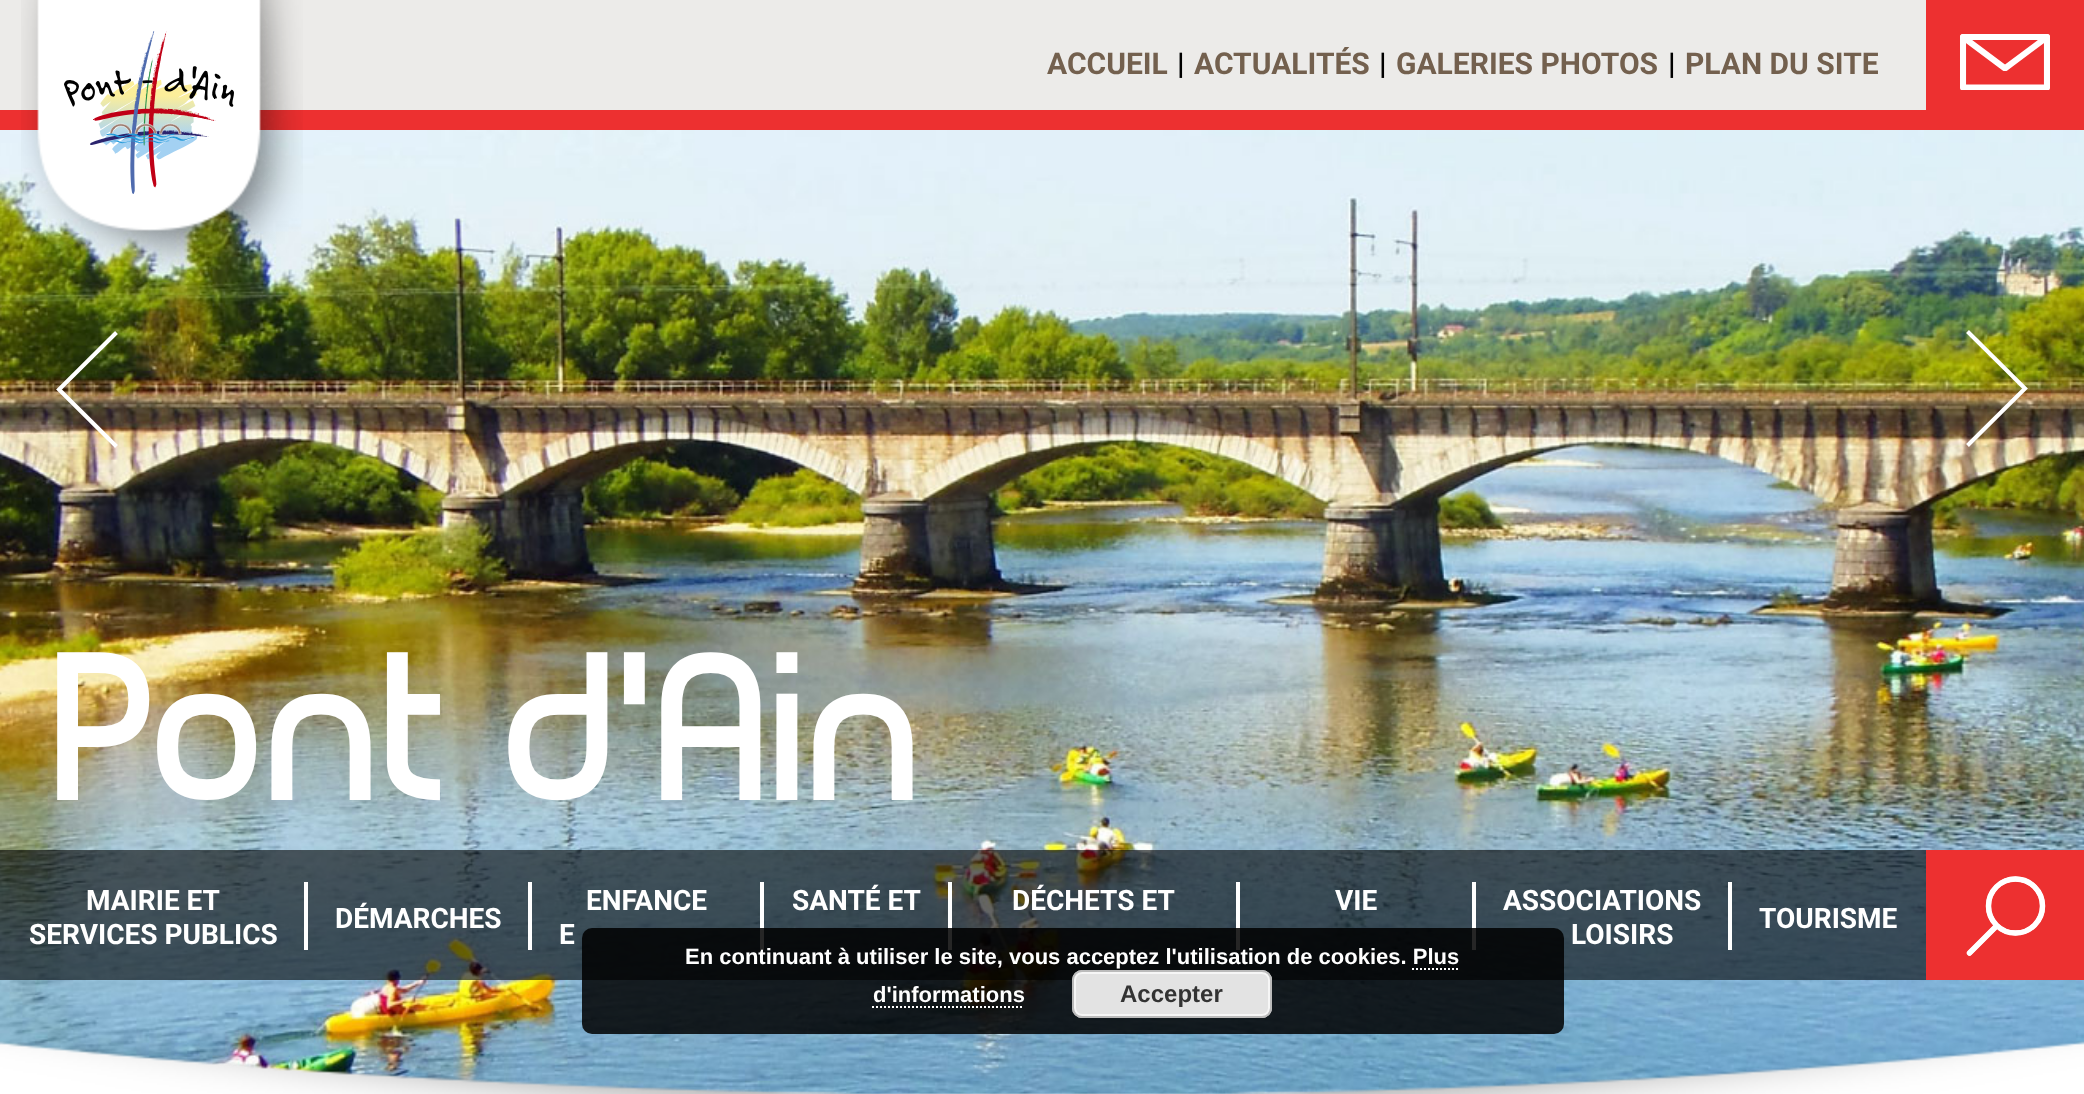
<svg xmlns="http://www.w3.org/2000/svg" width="2084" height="1094">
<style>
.a{font:bold 30px Roboto;fill:#73604e}
.b{font:bold 30px Roboto;fill:#000}
.c{font:200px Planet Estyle;fill:#fff}
.d{font:bold 28px Roboto;fill:#fff}
.e{font:bold 22px Liberation Sans;fill:#fff}
.f{font:bold 24px Liberation Sans;fill:#333}
</style>
<defs>
<clipPath id="clip1"><path d="M1960 34h90v56H1960z"/></clipPath>
</defs>
<rect width="100%" height="100%" fill="#ecebe9"/>
<path fill="#ed3030" d="M0 110h2084v20H0z"/>
<image href="3.png" x="0" y="130" width="2084" height="964"/>
<image href="1.png" x="21" y="0" width="282" height="273"/>
<image href="2.png" x="64" y="31" width="170" height="163"/>
<path fill="#ed3030" d="M1926 0h158v110H1926z"/>
<g clip-path="url(#clip1)">
<path fill="none" stroke="#fff" stroke-width="6.1" stroke-linecap="round" stroke-linejoin="round" d="M2047 37l-41.5 31h-1l-41.5-31z"/>
<path fill="none" stroke="#fff" stroke-width="6.1" stroke-linecap="round" stroke-linejoin="round" d="M2047 37v50.5h-84v-50.5"/>
</g>
<path fill="none" stroke="#fff" stroke-width="4.1" d="M116.5 446.5l-57.5-57l57.5-57"/>
<path fill="none" stroke="#fff" stroke-width="4.1" d="M1967.5 331.5l57.5 57l-57.5 57"/>
<path fill="#00000099" d="M0 850h1926v130H0z"/>
<path fill="#fff" d="M528 882h4v68H528z"/>
<path fill="#fff" d="M760 882h4v68H760z"/>
<path fill="#fff" d="M948 882h4v68H948z"/>
<path fill="#fff" d="M1236 882h4v68H1236z"/>
<path fill="#fff" d="M1472 882h4v68H1472z"/>
<path fill="#fff" d="M304 882h4v68H304z"/>
<path fill="#fff" d="M1728 882h4v68H1728z"/>
<path fill="#ed3030" d="M1926 850h158v130H1926z"/>
<circle fill="none" stroke="#fff" stroke-width="4.8" cx="2015.5" cy="906" r="27"/>
<path fill="none" stroke="#fff" stroke-width="4.8" stroke-linecap="round" stroke-linejoin="round" d="M1996.5 926l-27 27"/>
<circle fill="none" stroke="#fff" stroke-width="5.5" cx="2015.5" cy="906" r="27"/>
<path fill="none" stroke="#fff" stroke-width="5.5" stroke-linecap="round" stroke-linejoin="round" d="M1996.5 926l-27 27"/>
<image href="4.png" x="0" y="1041" width="2084" height="53"/>
<rect fill="#000000d9" x="582" y="928" width="982" height="106" rx="10"/>
<path fill="none" stroke="#fff" stroke-width="2" stroke-dasharray="2 2" d="M1412 969h48"/>
<path fill="none" stroke="#fff" stroke-width="2" stroke-dasharray="2 2" d="M872 1007h152"/>
<rect fill="#e3e3e3" x="1072" y="970" width="200" height="48" rx="10"/>
<rect fill="none" stroke="#f6f6f6" stroke-width="2" x="1075" y="973" width="194" height="42" rx="7"/>
<rect fill="none" stroke="#bbb" stroke-width="2" x="1073" y="971" width="198" height="46" rx="9"/>
<text class="a" x="1047" y="74">ACCUEIL</text>
<text class="b" x="1177" y="74">|</text>
<text class="a" x="1194" y="74">ACTUALITÉS</text>
<text class="b" x="1379" y="74">|</text>
<text class="a" x="1396" y="74">GALERIES PHOTOS</text>
<text class="b" x="1668" y="74">|</text>
<text class="a" x="1685" y="74">PLAN DU SITE</text>
<text class="c" x="56" y="800">Pont d'Ain</text>
<text class="d" x="86" y="910">MAIRIE ET</text>
<text class="d" x="29" y="944">SERVICES PUBLICS</text>
<text class="d" x="586" y="910">ENFANCE</text>
<text class="d" x="559" y="944">E</text>
<text class="d" x="792" y="910">SANTÉ ET</text>
<text class="d" x="1012" y="910">DÉCHETS ET</text>
<text class="d" x="1335" y="910">VIE</text>
<text class="d" x="1503" y="910">ASSOCIATIONS</text>
<text class="d" x="1571" y="944">LOISIRS</text>
<text class="d" x="335" y="928">DÉMARCHES</text>
<text class="d" x="1759" y="928">TOURISME</text>
<text class="e" x="685" y="964">En continuant à utiliser le site, vous acceptez l'utilisation de cookies. Plus</text>
<text class="e" x="873" y="1002">d'informations</text>
<text class="f" x="1120" y="1002">Accepter</text>
</svg>
